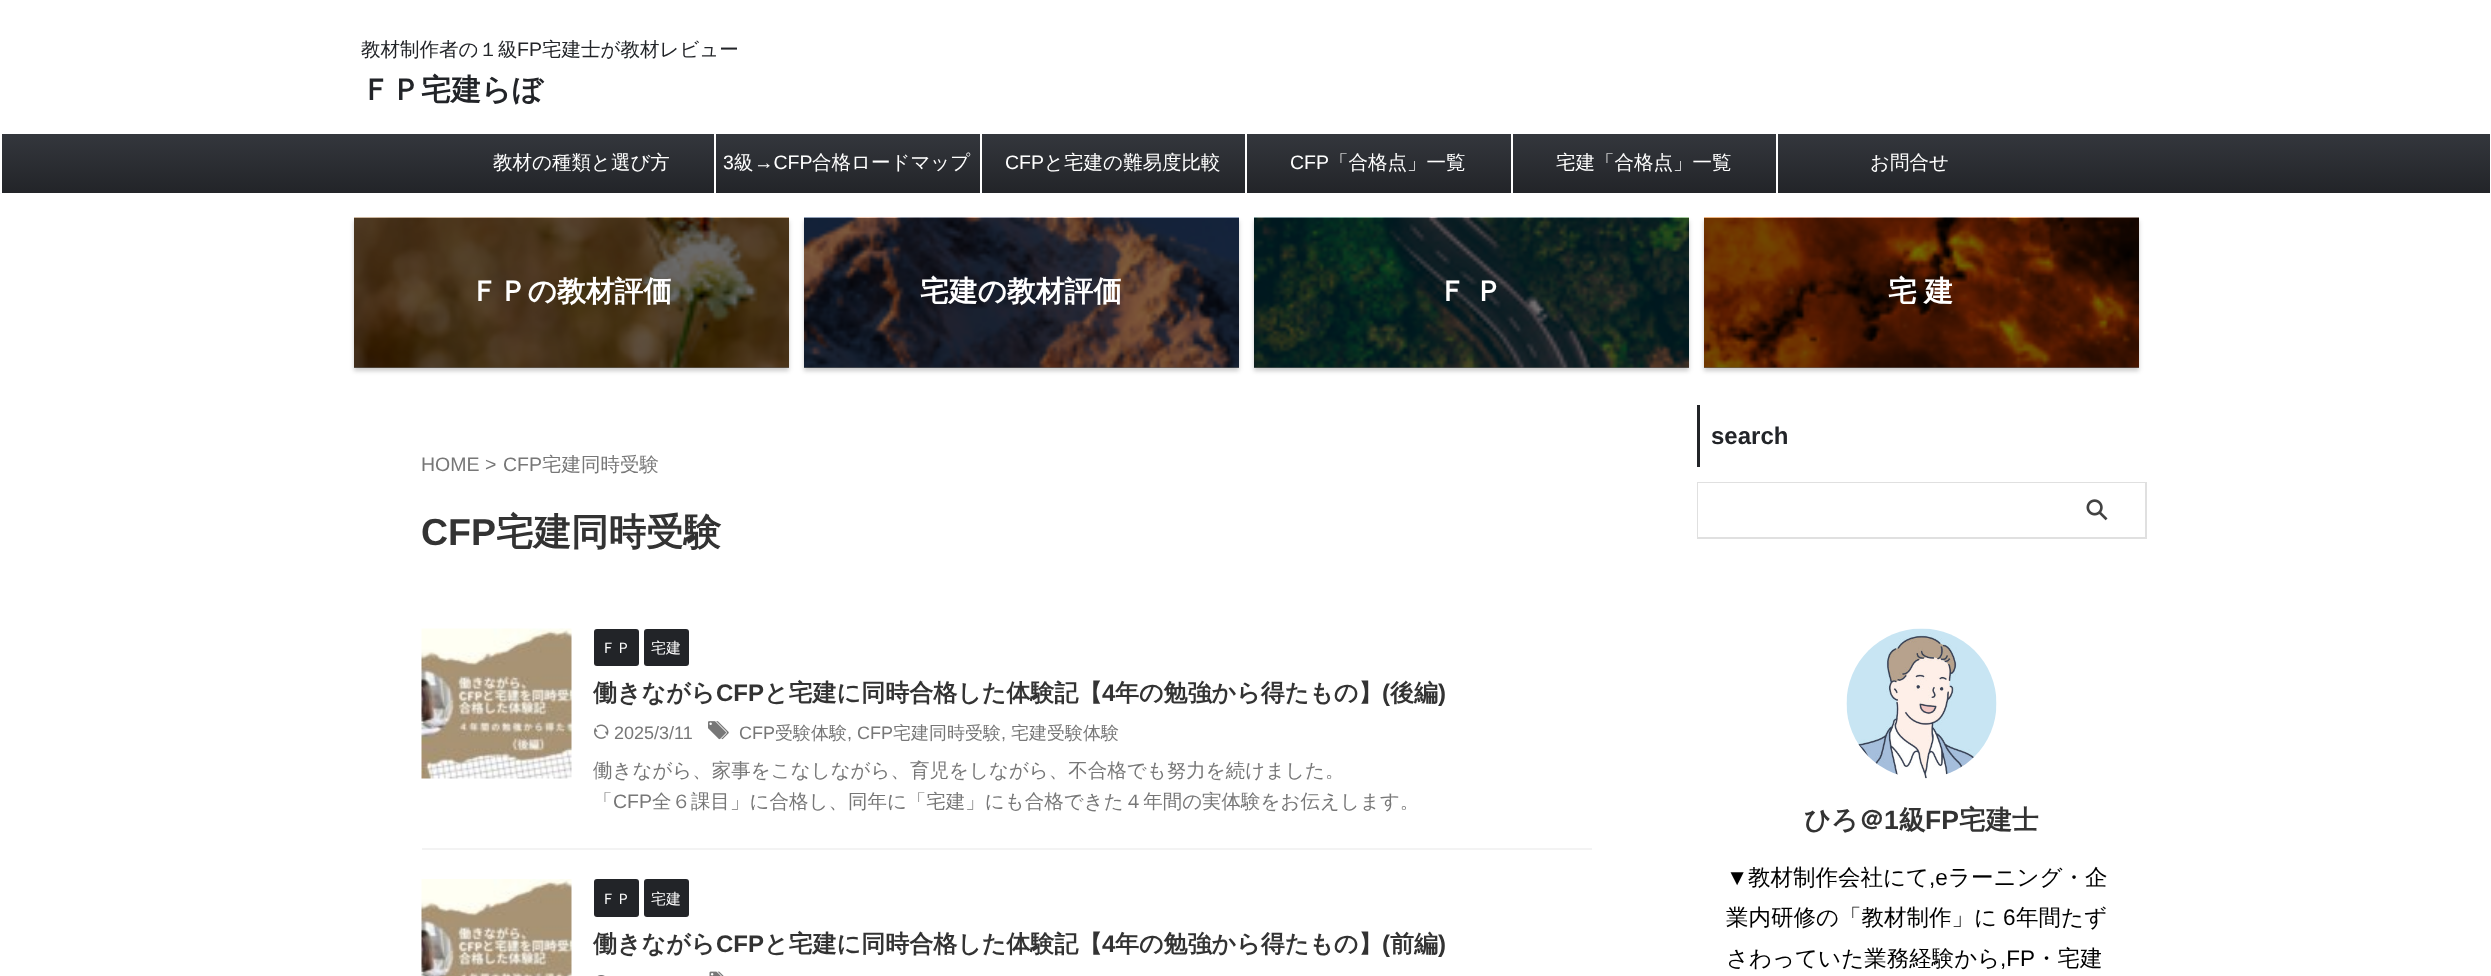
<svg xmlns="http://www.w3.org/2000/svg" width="2491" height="976">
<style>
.a{font:500 19.5px WenQuanYi Zen Hei;fill:#222428}
.b{font:19.5px Liberation Sans;fill:#222428}
.c{font:bold 30px WenQuanYi Zen Hei;fill:#222428}
.d{font:500 19.5px WenQuanYi Zen Hei;fill:#fff}
.e{font:19.5px Liberation Sans;fill:#fff}
.f{font:bold 28.75px WenQuanYi Zen Hei;fill:#fff}
.g{font:19.5px Liberation Sans;fill:#777}
.h{font:500 19.5px WenQuanYi Zen Hei;fill:#777}
.i{font:bold 37.5px Liberation Sans;fill:#333}
.j{font:bold 37.5px WenQuanYi Zen Hei;fill:#333}
.k{font:500 15px WenQuanYi Zen Hei;fill:#fff}
.l{font:bold 24px WenQuanYi Zen Hei;fill:#333}
.m{font:bold 24px Liberation Sans;fill:#333}
.n{font:18px Liberation Sans;fill:#777}
.o{font:500 18px WenQuanYi Zen Hei;fill:#777}
.p{font:bold 24px Liberation Sans;fill:#222428}
.q{font:bold 26.5px WenQuanYi Zen Hei;fill:#333}
.r{font:bold 26.5px Liberation Sans;fill:#333}
.s{font:22.5px Liberation Sans;fill:#000}
.t{font:500 22.5px WenQuanYi Zen Hei;fill:#000}
</style>
<defs>
<linearGradient id="g1" gradientUnits="userSpaceOnUse" x1="1246" y1="133" x2="1246" y2="194"><stop offset="0" stop-color="#34373d"/><stop offset="1" stop-color="#222428"/></linearGradient>
</defs>
<rect width="100%" height="100%" fill="#fff"/>
<path fill="url(#g1)" d="M0 134h2490v60H0z"/>
<rect fill="none" stroke="#fff" stroke-width="2" x="1" y="133" width="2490" height="61" rx="0.5"/>
<path fill="#fff" d="M714 134h2v60H714z"/>
<path fill="#fff" d="M980 134h2v60H980z"/>
<path fill="#fff" d="M1245 134h2v60H1245z"/>
<path fill="#fff" d="M1511 134h2v60H1511z"/>
<path fill="#fff" d="M1776 134h2v60H1776z"/>
<path fill="#00000033" filter="blur(2px)" d="M354 221h435v150H354z"/>
<image href="1.png" x="354" y="217" width="435" height="151"/>
<path fill="#00000080" d="M354 218h435v150H354z"/>
<path fill="#00000033" filter="blur(2px)" d="M804 221h435v150H804z"/>
<image href="2.png" x="804" y="217" width="435" height="151"/>
<path fill="#00000080" d="M804 218h435v150H804z"/>
<path fill="#00000033" filter="blur(2px)" d="M1254 221h435v150H1254z"/>
<image href="3.png" x="1254" y="217" width="435" height="151"/>
<path fill="#00000080" d="M1254 218h435v150H1254z"/>
<path fill="#00000033" filter="blur(2px)" d="M1704 221h435v150H1704z"/>
<image href="4.png" x="1704" y="217" width="435" height="151"/>
<path fill="#00000080" d="M1704 218h435v150H1704z"/>
<path fill="#f3f3f3" d="M422 848h1170v2H422z"/>
<image href="5.png" x="421" y="628" width="151" height="151"/>
<rect fill="#222428" x="594" y="629" width="45" height="37" rx="3"/>
<rect fill="#222428" x="644" y="629" width="45" height="37" rx="3"/>
<image href="6.png" x="594" y="724" width="15" height="15"/>
<image href="7.png" x="708" y="721" width="21" height="19"/>
<image href="8.png" x="421" y="879" width="151" height="97"/>
<rect fill="#222428" x="594" y="879" width="45" height="38" rx="3"/>
<rect fill="#222428" x="644" y="879" width="45" height="38" rx="3"/>
<image href="9.png" x="597" y="975" width="8" height="1"/>
<image href="10.png" x="709" y="971" width="15" height="5"/>
<path fill="#222428" d="M1697 405h3v62H1697z"/>
<path fill="none" stroke="#e0e0e0" stroke-width="2" d="M1698 483h448v55H1698z"/>
<path fill="#fff" d="M1698 483h351v54H1698z"/>
<path fill="#fff" d="M2049 483h96v1H2049z"/>
<image href="11.png" x="2086" y="499" width="22" height="22"/>
<image href="12.png" x="1846" y="628" width="151" height="151"/>
<text class="a" x="361" y="56">教材制作者の１級</text>
<text class="b" x="517" y="56">FP</text>
<text class="a" x="542" y="56">宅建士が教材レビュー</text>
<text class="c" x="361" y="100">ＦＰ宅建らぼ</text>
<text class="d" x="493" y="169">教材の種類と選び方</text>
<text class="e" x="723" y="169">3</text>
<text class="d" x="734" y="169">級</text>
<text class="e" x="754" y="169">→CFP</text>
<text class="d" x="812" y="169">合格ロードマップ</text>
<text class="e" x="1005" y="169">CFP</text>
<text class="d" x="1044" y="169">と宅建の難易度比較</text>
<text class="e" x="1290" y="169">CFP</text>
<text class="d" x="1329" y="169">「合格点」一覧</text>
<text class="d" x="1556" y="169">宅建「合格点」一覧</text>
<text class="d" x="1870" y="169">お問合せ</text>
<text class="f" x="470" y="301">ＦＰの教材評価</text>
<text class="f" x="920" y="301">宅建の教材評価</text>
<text class="f" x="1438" y="301" word-spacing="-1">Ｆ Ｐ</text>
<text class="f" x="1888" y="301" word-spacing="-1">宅 建</text>
<text class="g" x="421" y="471">HOME &gt;</text>
<text class="g" x="503" y="471">CFP</text>
<text class="h" x="542" y="471">宅建同時受験</text>
<text class="i" x="421" y="545">CFP</text>
<text class="j" x="496" y="545">宅建同時受験</text>
<text class="k" x="601" y="653">ＦＰ</text>
<text class="k" x="651" y="653">宅建</text>
<text class="l" x="593" y="701">働きながら</text>
<text class="m" x="716" y="701">CFP</text>
<text class="l" x="764" y="701">と宅建に同時合格した体験記【</text>
<text class="m" x="1102" y="701">4</text>
<text class="l" x="1115" y="701">年の勉強から得たもの】</text>
<text class="m" x="1382" y="701">(</text>
<text class="l" x="1390" y="701">後編</text>
<text class="m" x="1438" y="701">)</text>
<text class="n" x="614" y="739">2025/3/11</text>
<text class="n" x="739" y="739">CFP</text>
<text class="o" x="775" y="739">受験体験</text>
<text class="n" x="847" y="739">, CFP</text>
<text class="o" x="893" y="739">宅建同時受験</text>
<text class="n" x="1001" y="739">,</text>
<text class="o" x="1011" y="739">宅建受験体験</text>
<text class="h" x="593" y="777">働きながら、家事をこなしながら、育児をしながら、不合格でも努力を続けました。</text>
<text class="h" x="593" y="808">「</text>
<text class="g" x="613" y="808">CFP</text>
<text class="h" x="652" y="808">全６課目」に合格し、同年に「宅建」にも合格できた４年間の実体験をお伝えします。</text>
<text class="k" x="601" y="904">ＦＰ</text>
<text class="k" x="651" y="904">宅建</text>
<text class="l" x="593" y="952">働きながら</text>
<text class="m" x="716" y="952">CFP</text>
<text class="l" x="764" y="952">と宅建に同時合格した体験記【</text>
<text class="m" x="1102" y="952">4</text>
<text class="l" x="1115" y="952">年の勉強から得たもの】</text>
<text class="m" x="1382" y="952">(</text>
<text class="l" x="1390" y="952">前編</text>
<text class="m" x="1438" y="952">)</text>
<text class="p" x="1711" y="444">search</text>
<text class="q" x="1804" y="829">ひろ＠</text>
<text class="r" x="1884" y="829">1</text>
<text class="q" x="1899" y="829">級</text>
<text class="r" x="1925" y="829">FP</text>
<text class="q" x="1959" y="829">宅建士</text>
<text class="s" x="1726" y="885">▼</text>
<text class="t" x="1748" y="885">教材制作会社にて</text>
<text class="s" x="1929" y="885">,e</text>
<text class="t" x="1948" y="885">ラーニング・企</text>
<text class="t" x="1726" y="925">業内研修の「教材制作」に</text>
<text class="s" x="2003" y="925">6</text>
<text class="t" x="2016" y="925">年間たず</text>
<text class="t" x="1726" y="966">さわっていた業務経験から</text>
<text class="s" x="2000" y="966">,FP</text>
<text class="t" x="2035" y="966">・宅建</text>
</svg>
